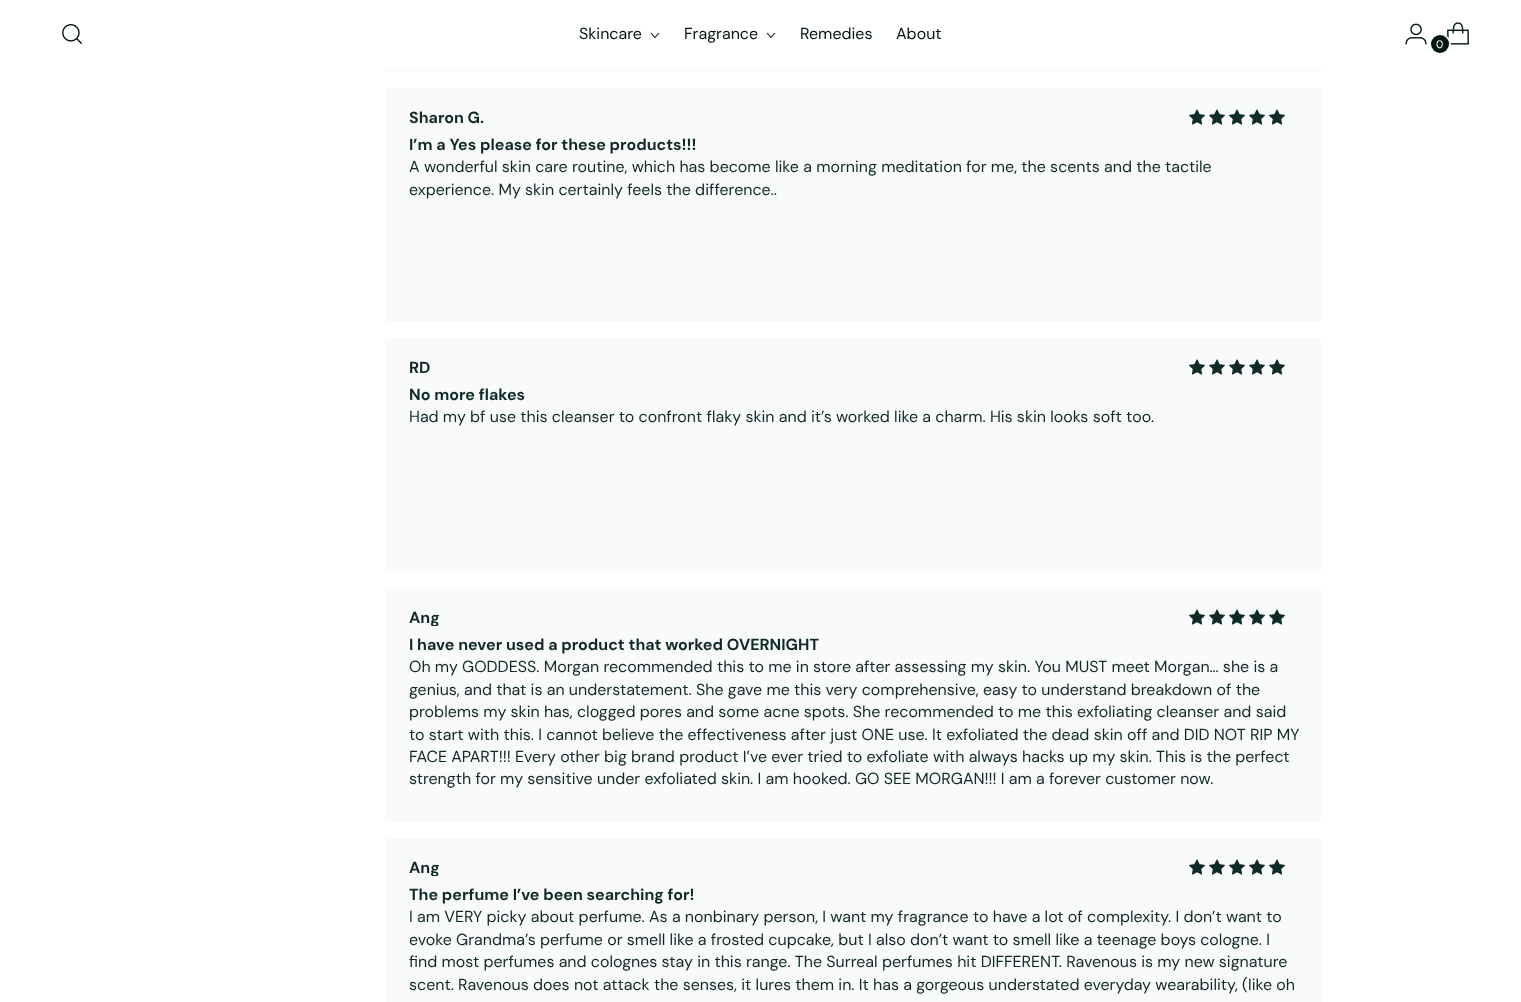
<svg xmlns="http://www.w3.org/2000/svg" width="1521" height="1002">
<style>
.a{font:16px DM Sans;fill:#031612}
.b{font:11px 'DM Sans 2';fill:#fff}
.c{font:bold 16px DM Sans;fill:#102b26}
.d{font:16px DM Sans;fill:#102b26}
</style>
<defs>
<clipPath id="clip1"><path d="M409 610h30v16H409z"/></clipPath>
<clipPath id="clip2"><path d="M409 860h30v16H409z"/></clipPath>
</defs>
<rect width="100%" height="100%" fill="#fff"/>
<image href="1.png" x="62" y="24" width="21" height="21"/>
<path fill="none" stroke="#031612" stroke-width="1.1" d="M651 33l4 4.5l4-4.5"/>
<path fill="none" stroke="#031612" stroke-width="1.1" d="M767 33l4 4.5l4-4.5"/>
<image href="2.png" x="1405" y="23" width="22" height="22"/>
<image href="3.png" x="1447" y="22" width="22" height="23"/>
<circle fill="none" stroke="#fff" stroke-width="2" cx="1440.5" cy="44.5" r="9.5"/>
<circle fill="#031612" cx="1440" cy="44" r="9"/>
<path fill="#f9fafb" d="M385 68h936v4H385z"/>
<path fill="#f9fafb" d="M385 88h936v234H385z"/>
<image href="4.png" x="1189" y="109" width="16" height="16"/>
<image href="4.png" x="1209" y="109" width="16" height="16"/>
<image href="4.png" x="1229" y="109" width="16" height="16"/>
<image href="4.png" x="1249" y="109" width="16" height="16"/>
<image href="4.png" x="1269" y="109" width="16" height="16"/>
<path fill="#f9fafb" d="M385 338h936v234H385z"/>
<image href="4.png" x="1189" y="359" width="16" height="16"/>
<image href="4.png" x="1209" y="359" width="16" height="16"/>
<image href="4.png" x="1229" y="359" width="16" height="16"/>
<image href="4.png" x="1249" y="359" width="16" height="16"/>
<image href="4.png" x="1269" y="359" width="16" height="16"/>
<path fill="#f9fafb" d="M385 588h936v234H385z"/>
<image href="4.png" x="1189" y="609" width="16" height="16"/>
<image href="4.png" x="1209" y="609" width="16" height="16"/>
<image href="4.png" x="1229" y="609" width="16" height="16"/>
<image href="4.png" x="1249" y="609" width="16" height="16"/>
<image href="4.png" x="1269" y="609" width="16" height="16"/>
<path fill="#f9fafb" d="M385 838h936v164H385z"/>
<image href="4.png" x="1189" y="859" width="16" height="16"/>
<image href="4.png" x="1209" y="859" width="16" height="16"/>
<image href="4.png" x="1229" y="859" width="16" height="16"/>
<image href="4.png" x="1249" y="859" width="16" height="16"/>
<image href="4.png" x="1269" y="859" width="16" height="16"/>
<text class="a" x="579" y="39">Skincare</text>
<text class="a" x="684" y="39">Fragrance</text>
<text class="a" x="800" y="39">Remedies</text>
<text class="a" x="896" y="39">About</text>
<text class="b" x="1436" y="48">0</text>
<text class="c" x="409" y="123">Sharon G.</text>
<text class="c" x="409" y="150">I’m a Yes please for these products!!!</text>
<text class="d" x="409" y="172">A wonderful skin care routine, which has become like a morning meditation for me, the scents and the tactile</text>
<text class="d" x="409" y="195">experience. My skin certainly feels the difference..</text>
<text class="c" x="409" y="373">RD</text>
<text class="c" x="409" y="400">No more flakes</text>
<text class="d" x="409" y="422">Had my bf use this cleanser to confront flaky skin and it’s worked like a charm. His skin looks soft too.</text>
<g clip-path="url(#clip1)">
<text class="c" x="409" y="623">Ang</text>
</g>
<text class="c" x="409" y="650">I have never used a product that worked OVERNIGHT</text>
<text class="d" x="409" y="672">Oh my GODDESS. Morgan recommended this to me in store after assessing my skin. You MUST meet Morgan… she is a</text>
<text class="d" x="409" y="695">genius, and that is an understatement. She gave me this very comprehensive, easy to understand breakdown of the</text>
<text class="d" x="409" y="717">problems my skin has, clogged pores and some acne spots. She recommended to me this exfoliating cleanser and said</text>
<text class="d" x="409" y="740">to start with this. I cannot believe the effectiveness after just ONE use. It exfoliated the dead skin off and DID NOT RIP MY</text>
<text class="d" x="409" y="762">FACE APART!!! Every other big brand product I’ve ever tried to exfoliate with always hacks up my skin. This is the perfect</text>
<text class="d" x="409" y="784">strength for my sensitive under exfoliated skin. I am hooked. GO SEE MORGAN!!! I am a forever customer now.</text>
<g clip-path="url(#clip2)">
<text class="c" x="409" y="873">Ang</text>
</g>
<text class="c" x="409" y="900">The perfume I’ve been searching for!</text>
<text class="d" x="409" y="922">I am VERY picky about perfume. As a nonbinary person, I want my fragrance to have a lot of complexity. I don’t want to</text>
<text class="d" x="409" y="945">evoke Grandma’s perfume or smell like a frosted cupcake, but I also don’t want to smell like a teenage boys cologne. I</text>
<text class="d" x="409" y="967">find most perfumes and colognes stay in this range. The Surreal perfumes hit DIFFERENT. Ravenous is my new signature</text>
<text class="d" x="409" y="990">scent. Ravenous does not attack the senses, it lures them in. It has a gorgeous understated everyday wearability, (like oh</text>
</svg>
